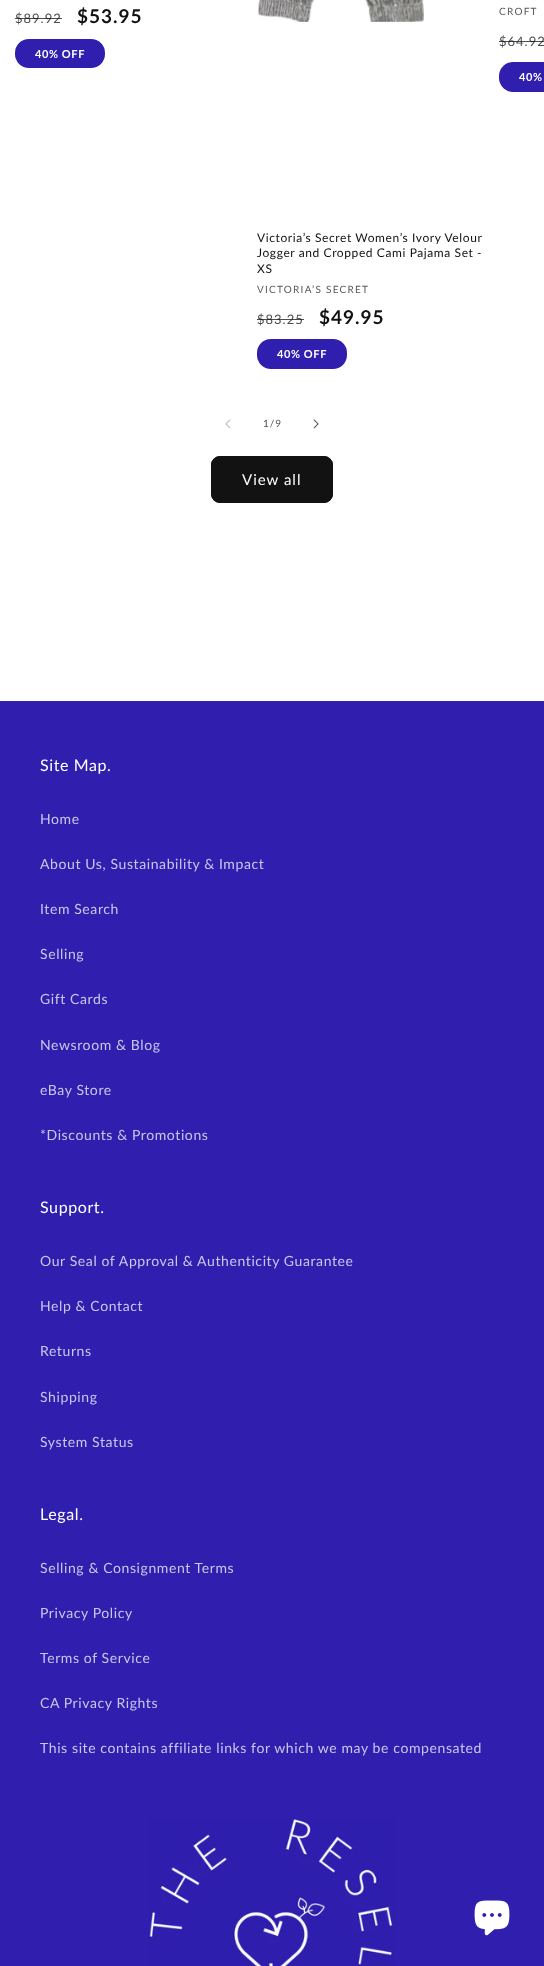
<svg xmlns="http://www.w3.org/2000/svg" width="544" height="1966">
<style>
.a{font:13px Lato;letter-spacing:1px;fill:#4d4d4d}
.b{font:bold 19px Lato;letter-spacing:1px;fill:#121212}
.c{font:bold 11px Lato;letter-spacing:0.6px;fill:#fff}
.d{font:10px Lato;letter-spacing:1.25px;fill:#595959}
.e{font:12px Lato;letter-spacing:0.6px;fill:#121212}
.f{font:10px Lato;letter-spacing:1px;fill:#4d4d4d}
.g{font:15px Lato;letter-spacing:1px;fill:#fff}
.h{font:16px Lato;letter-spacing:0.6px;fill:#fff}
.i{font:14px Lato;letter-spacing:0.6px;fill:#cbc7eb}
</style>
<rect width="100%" height="100%" fill="#fff"/>
<rect fill="#301eaf" x="15" y="39" width="90" height="29" rx="14"/>
<path fill="#301eaf" d="M513 62h31v30h-31c-7.5 0-14-6.5-14-14v-2c0-7.5 6.5-14 14-14z"/>
<image href="1.png" x="258" y="0" width="166" height="22"/>
<rect fill="#301eaf" x="257" y="339" width="90" height="30" rx="14"/>
<image href="2.png" x="225" y="419" width="6" height="10"/>
<image href="3.png" x="313" y="419" width="6" height="10"/>
<rect fill="#121212" x="211" y="456" width="122" height="47" rx="9"/>
<rect fill="none" stroke="#121212" x="211.5" y="456.5" width="121" height="46" rx="8.5"/>
<path fill="#301eaf" d="M0 701h544v1265H0z"/>
<image href="4.png" x="148" y="1818" width="248" height="148"/>
<image href="5.png" x="474" y="1900" width="36" height="36"/>
<text class="a" x="15" y="23">$89.92</text>
<path fill="#121212bf" d="M15 18h47v1H15z"/>
<text class="b" x="77" y="23">$53.95</text>
<text class="c" x="35" y="58">40% OFF</text>
<text class="d" x="499" y="15">CROFT</text>
<text class="a" x="499" y="46">$64.92</text>
<path fill="#121212bf" d="M499 41h45v1H499z"/>
<text class="c" x="519" y="81">40%</text>
<text class="e" x="257" y="242">Victoria’s Secret Women’s Ivory Velour</text>
<text class="e" x="257" y="257">Jogger and Cropped Cami Pajama Set -</text>
<text class="e" x="257" y="273">XS</text>
<text class="d" x="257" y="293">VICTORIA’S SECRET</text>
<text class="a" x="257" y="324">$83.25</text>
<path fill="#121212bf" d="M257 319h47v1H257z"/>
<text class="b" x="319" y="324">$49.95</text>
<text class="c" x="277" y="358">40% OFF</text>
<text class="f" x="263" y="427">1/9</text>
<text class="g" x="242" y="485">View all</text>
<text class="h" x="40" y="771">Site Map.</text>
<text class="i" x="40" y="824">Home</text>
<text class="i" x="40" y="869">About Us, Sustainability &amp; Impact</text>
<text class="i" x="40" y="914">Item Search</text>
<text class="i" x="40" y="959">Selling</text>
<text class="i" x="40" y="1004">Gift Cards</text>
<text class="i" x="40" y="1050">Newsroom &amp; Blog</text>
<text class="i" x="40" y="1095">eBay Store</text>
<text class="i" x="40" y="1140">*Discounts &amp; Promotions</text>
<text class="h" x="40" y="1213">Support.</text>
<text class="i" x="40" y="1266">Our Seal of Approval &amp; Authenticity Guarantee</text>
<text class="i" x="40" y="1311">Help &amp; Contact</text>
<text class="i" x="40" y="1356">Returns</text>
<text class="i" x="40" y="1402">Shipping</text>
<text class="i" x="40" y="1447">System Status</text>
<text class="h" x="40" y="1520">Legal.</text>
<text class="i" x="40" y="1573">Selling &amp; Consignment Terms</text>
<text class="i" x="40" y="1618">Privacy Policy</text>
<text class="i" x="40" y="1663">Terms of Service</text>
<text class="i" x="40" y="1708">CA Privacy Rights</text>
<text class="i" x="40" y="1753">This site contains affiliate links for which we may be compensated</text>
</svg>
